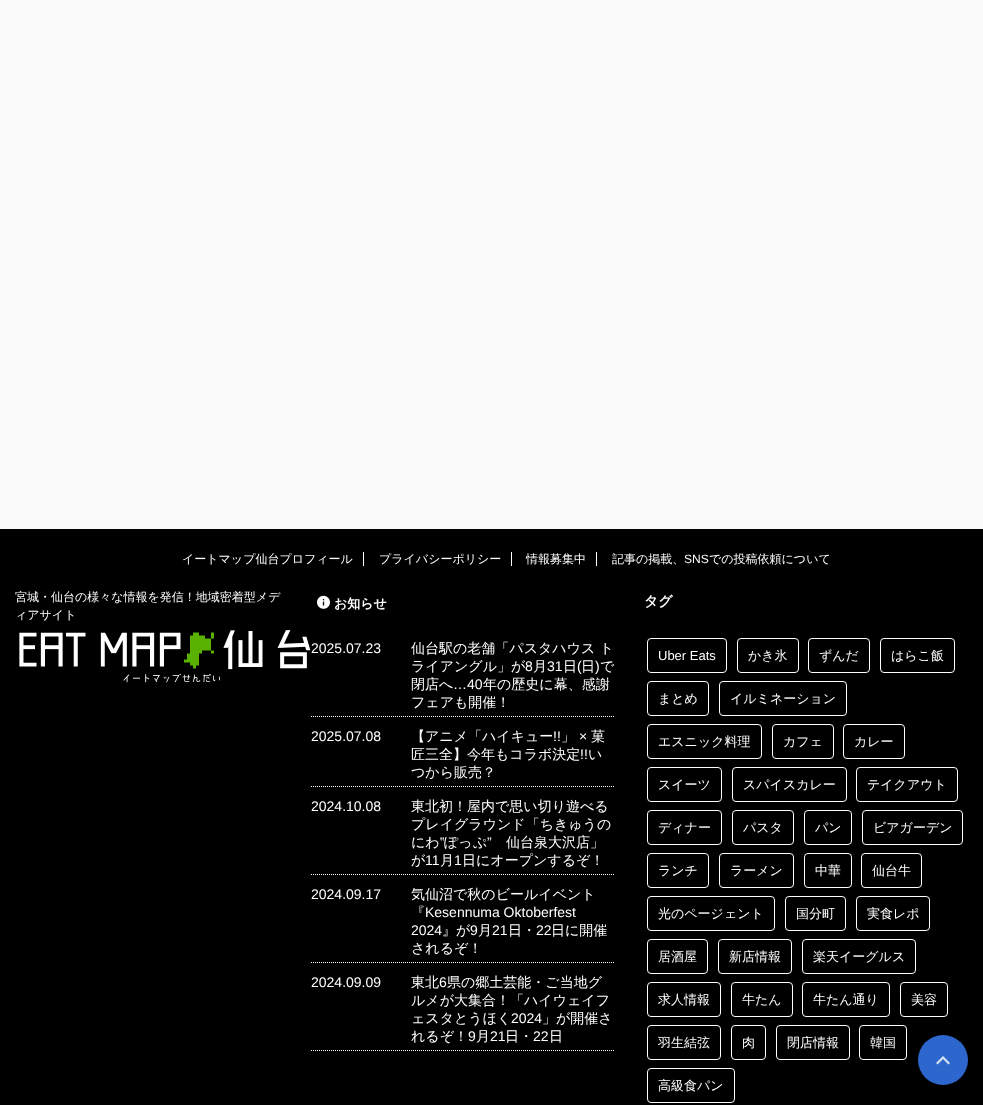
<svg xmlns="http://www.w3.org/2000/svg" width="983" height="1105">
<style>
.a{font:500 12px WenQuanYi Zen Hei;fill:#fff}
.b{font:12px Liberation Sans;fill:#fff}
.c{font:bold 13px WenQuanYi Zen Hei;fill:#fff}
.d{font:14px Liberation Sans;fill:#fff}
.e{font:500 14px WenQuanYi Zen Hei;fill:#fff}
.f{font:bold 14px WenQuanYi Zen Hei;fill:#fff}
.g{font:13px Liberation Sans;fill:#fff}
.h{font:500 13px WenQuanYi Zen Hei;fill:#fff}
</style>
<rect width="100%" height="100%" fill="#fafafa"/>
<path fill="#000" d="M0 529h983v576H0z"/>
<path fill="#fff" d="M363 552h1v14H363z"/>
<path fill="#fff" d="M511 552h1v14H511z"/>
<path fill="#fff" d="M596 552h1v14H596z"/>
<image href="1.png" x="19" y="630" width="292" height="53"/>
<image href="2.png" x="317" y="595" width="13" height="14"/>
<path fill="none" stroke="#fff" stroke-dasharray="1 1" d="M311 716.5h303"/>
<path fill="none" stroke="#fff" stroke-dasharray="1 1" d="M311 786.5h303"/>
<path fill="none" stroke="#fff" stroke-dasharray="1 1" d="M311 874.5h303"/>
<path fill="none" stroke="#fff" stroke-dasharray="1 1" d="M311 962.5h303"/>
<path fill="none" stroke="#fff" stroke-dasharray="1 1" d="M311 1050.5h303"/>
<rect fill="none" stroke="#fff" x="647.5" y="638.5" width="79" height="34" rx="3.5"/>
<rect fill="none" stroke="#fff" x="737.5" y="638.5" width="61" height="34" rx="3.5"/>
<rect fill="none" stroke="#fff" x="808.5" y="638.5" width="61" height="34" rx="3.5"/>
<rect fill="none" stroke="#fff" x="880.5" y="638.5" width="74" height="34" rx="3.5"/>
<rect fill="none" stroke="#fff" x="647.5" y="681.5" width="61" height="34" rx="3.5"/>
<rect fill="none" stroke="#fff" x="719.5" y="681.5" width="127" height="34" rx="3.5"/>
<rect fill="none" stroke="#fff" x="647.5" y="724.5" width="114" height="34" rx="3.5"/>
<rect fill="none" stroke="#fff" x="772.5" y="724.5" width="61" height="34" rx="3.5"/>
<rect fill="none" stroke="#fff" x="843.5" y="724.5" width="61" height="34" rx="3.5"/>
<rect fill="none" stroke="#fff" x="647.5" y="767.5" width="74" height="34" rx="3.5"/>
<rect fill="none" stroke="#fff" x="732.5" y="767.5" width="114" height="34" rx="3.5"/>
<rect fill="none" stroke="#fff" x="856.5" y="767.5" width="101" height="34" rx="3.5"/>
<rect fill="none" stroke="#fff" x="647.5" y="810.5" width="74" height="34" rx="3.5"/>
<rect fill="none" stroke="#fff" x="732.5" y="810.5" width="61" height="34" rx="3.5"/>
<rect fill="none" stroke="#fff" x="804.5" y="810.5" width="47" height="34" rx="3.5"/>
<rect fill="none" stroke="#fff" x="862.5" y="810.5" width="100" height="34" rx="3.5"/>
<rect fill="none" stroke="#fff" x="647.5" y="853.5" width="61" height="34" rx="3.5"/>
<rect fill="none" stroke="#fff" x="719.5" y="853.5" width="74" height="34" rx="3.5"/>
<rect fill="none" stroke="#fff" x="804.5" y="853.5" width="47" height="34" rx="3.5"/>
<rect fill="none" stroke="#fff" x="861.5" y="853.5" width="60" height="34" rx="3.5"/>
<rect fill="none" stroke="#fff" x="647.5" y="896.5" width="127" height="34" rx="3.5"/>
<rect fill="none" stroke="#fff" x="785.5" y="896.5" width="60" height="34" rx="3.5"/>
<rect fill="none" stroke="#fff" x="856.5" y="896.5" width="73" height="34" rx="3.5"/>
<rect fill="none" stroke="#fff" x="647.5" y="939.5" width="60" height="34" rx="3.5"/>
<rect fill="none" stroke="#fff" x="718.5" y="939.5" width="73" height="34" rx="3.5"/>
<rect fill="none" stroke="#fff" x="802.5" y="939.5" width="113" height="34" rx="3.5"/>
<rect fill="none" stroke="#fff" x="647.5" y="982.5" width="73" height="34" rx="3.5"/>
<rect fill="none" stroke="#fff" x="731.5" y="982.5" width="61" height="34" rx="3.5"/>
<rect fill="none" stroke="#fff" x="802.5" y="982.5" width="87" height="34" rx="3.5"/>
<rect fill="none" stroke="#fff" x="900.5" y="982.5" width="47" height="34" rx="3.5"/>
<rect fill="none" stroke="#fff" x="647.5" y="1025.5" width="73" height="34" rx="3.5"/>
<rect fill="none" stroke="#fff" x="731.5" y="1025.5" width="34" height="34" rx="3.5"/>
<rect fill="none" stroke="#fff" x="776.5" y="1025.5" width="73" height="34" rx="3.5"/>
<rect fill="none" stroke="#fff" x="859.5" y="1025.5" width="47" height="34" rx="3.5"/>
<rect fill="none" stroke="#fff" x="647.5" y="1068.5" width="87" height="34" rx="3.5"/>
<circle fill="#2d66cc" cx="943" cy="1060" r="25"/>
<image href="3.png" x="936" y="1056" width="14" height="9"/>
<text class="a" x="182" y="563">イートマップ仙台プロフィール</text>
<text class="a" x="379" y="563">プライバシーポリシー</text>
<text class="a" x="526" y="563">情報募集中</text>
<text class="a" x="612" y="563">記事の掲載、</text>
<text class="b" x="684" y="563">SNS</text>
<text class="a" x="709" y="563">での投稿依頼について</text>
<text class="a" x="15" y="601">宮城・仙台の様々な情報を発信！地域密着型メデ</text>
<text class="a" x="15" y="619">ィアサイト</text>
<text class="c" x="334" y="608">お知らせ</text>
<text class="d" x="311" y="653">2025.07.23</text>
<text class="e" x="411" y="653">仙台駅の老舗「パスタハウス ト</text>
<text class="e" x="411" y="671">ライアングル」が</text>
<text class="d" x="525" y="671">8</text>
<text class="e" x="533" y="671">月</text>
<text class="d" x="547" y="671">31</text>
<text class="e" x="563" y="671">日</text>
<text class="d" x="577" y="671">(</text>
<text class="e" x="581" y="671">日</text>
<text class="d" x="595" y="671">)</text>
<text class="e" x="600" y="671">で</text>
<text class="e" x="411" y="689">閉店へ</text>
<text class="d" x="453" y="689">…40</text>
<text class="e" x="483" y="689">年の歴史に幕、感謝</text>
<text class="e" x="411" y="707">フェアも開催！</text>
<text class="d" x="311" y="741">2025.07.08</text>
<text class="e" x="411" y="741">【アニメ「ハイキュー</text>
<text class="d" x="553" y="741">!!</text>
<text class="e" x="561" y="741">」</text>
<text class="d" x="579" y="741">×</text>
<text class="e" x="591" y="741">菓</text>
<text class="e" x="411" y="759">匠三全】今年もコラボ決定</text>
<text class="d" x="580" y="759">!!</text>
<text class="e" x="588" y="759">い</text>
<text class="e" x="411" y="777">つから販売？</text>
<text class="d" x="311" y="811">2024.10.08</text>
<text class="e" x="411" y="811">東北初！屋内で思い切り遊べる</text>
<text class="e" x="411" y="829">プレイグラウンド「ちきゅうの</text>
<text class="e" x="411" y="847">にわ</text>
<text class="d" x="440" y="847">‟</text>
<text class="e" x="444" y="847">ぽっぷ</text>
<text class="d" x="487" y="847">”</text>
<text class="e" x="506" y="847">仙台泉大沢店」</text>
<text class="e" x="411" y="865">が</text>
<text class="d" x="425" y="865">11</text>
<text class="e" x="440" y="865">月</text>
<text class="d" x="454" y="865">1</text>
<text class="e" x="462" y="865">日にオープンするぞ！</text>
<text class="d" x="311" y="899">2024.09.17</text>
<text class="e" x="411" y="899">気仙沼で秋のビールイベント</text>
<text class="e" x="411" y="917">『</text>
<text class="d" x="425" y="917">Kesennuma Oktoberfest</text>
<text class="d" x="411" y="935">2024</text>
<text class="e" x="442" y="935">』が</text>
<text class="d" x="470" y="935">9</text>
<text class="e" x="478" y="935">月</text>
<text class="d" x="492" y="935">21</text>
<text class="e" x="508" y="935">日・</text>
<text class="d" x="536" y="935">22</text>
<text class="e" x="551" y="935">日に開催</text>
<text class="e" x="411" y="953">されるぞ！</text>
<text class="d" x="311" y="987">2024.09.09</text>
<text class="e" x="411" y="987">東北</text>
<text class="d" x="439" y="987">6</text>
<text class="e" x="447" y="987">県の郷土芸能・ご当地グ</text>
<text class="e" x="411" y="1005">ルメが大集合！「ハイウェイフ</text>
<text class="e" x="411" y="1023">ェスタとうほく</text>
<text class="d" x="511" y="1023">2024</text>
<text class="e" x="542" y="1023">」が開催さ</text>
<text class="e" x="411" y="1041">れるぞ！</text>
<text class="d" x="468" y="1041">9</text>
<text class="e" x="476" y="1041">月</text>
<text class="d" x="490" y="1041">21</text>
<text class="e" x="505" y="1041">日・</text>
<text class="d" x="533" y="1041">22</text>
<text class="e" x="549" y="1041">日</text>
<text class="f" x="644" y="606">タグ</text>
<text class="g" x="658" y="660">Uber Eats</text>
<text class="h" x="748" y="660">かき氷</text>
<text class="h" x="819" y="660">ずんだ</text>
<text class="h" x="891" y="660">はらこ飯</text>
<text class="h" x="658" y="703">まとめ</text>
<text class="h" x="730" y="703">イルミネーション</text>
<text class="h" x="658" y="746">エスニック料理</text>
<text class="h" x="783" y="746">カフェ</text>
<text class="h" x="854" y="746">カレー</text>
<text class="h" x="658" y="789">スイーツ</text>
<text class="h" x="743" y="789">スパイスカレー</text>
<text class="h" x="867" y="789">テイクアウト</text>
<text class="h" x="658" y="832">ディナー</text>
<text class="h" x="743" y="832">パスタ</text>
<text class="h" x="815" y="832">パン</text>
<text class="h" x="873" y="832">ビアガーデン</text>
<text class="h" x="658" y="875">ランチ</text>
<text class="h" x="730" y="875">ラーメン</text>
<text class="h" x="815" y="875">中華</text>
<text class="h" x="872" y="875">仙台牛</text>
<text class="h" x="658" y="918">光のページェント</text>
<text class="h" x="796" y="918">国分町</text>
<text class="h" x="867" y="918">実食レポ</text>
<text class="h" x="658" y="961">居酒屋</text>
<text class="h" x="729" y="961">新店情報</text>
<text class="h" x="813" y="961">楽天イーグルス</text>
<text class="h" x="658" y="1004">求人情報</text>
<text class="h" x="742" y="1004">牛たん</text>
<text class="h" x="813" y="1004">牛たん通り</text>
<text class="h" x="911" y="1004">美容</text>
<text class="h" x="658" y="1047">羽生結弦</text>
<text class="h" x="742" y="1047">肉</text>
<text class="h" x="787" y="1047">閉店情報</text>
<text class="h" x="870" y="1047">韓国</text>
<text class="h" x="658" y="1090">高級食パン</text>
</svg>
